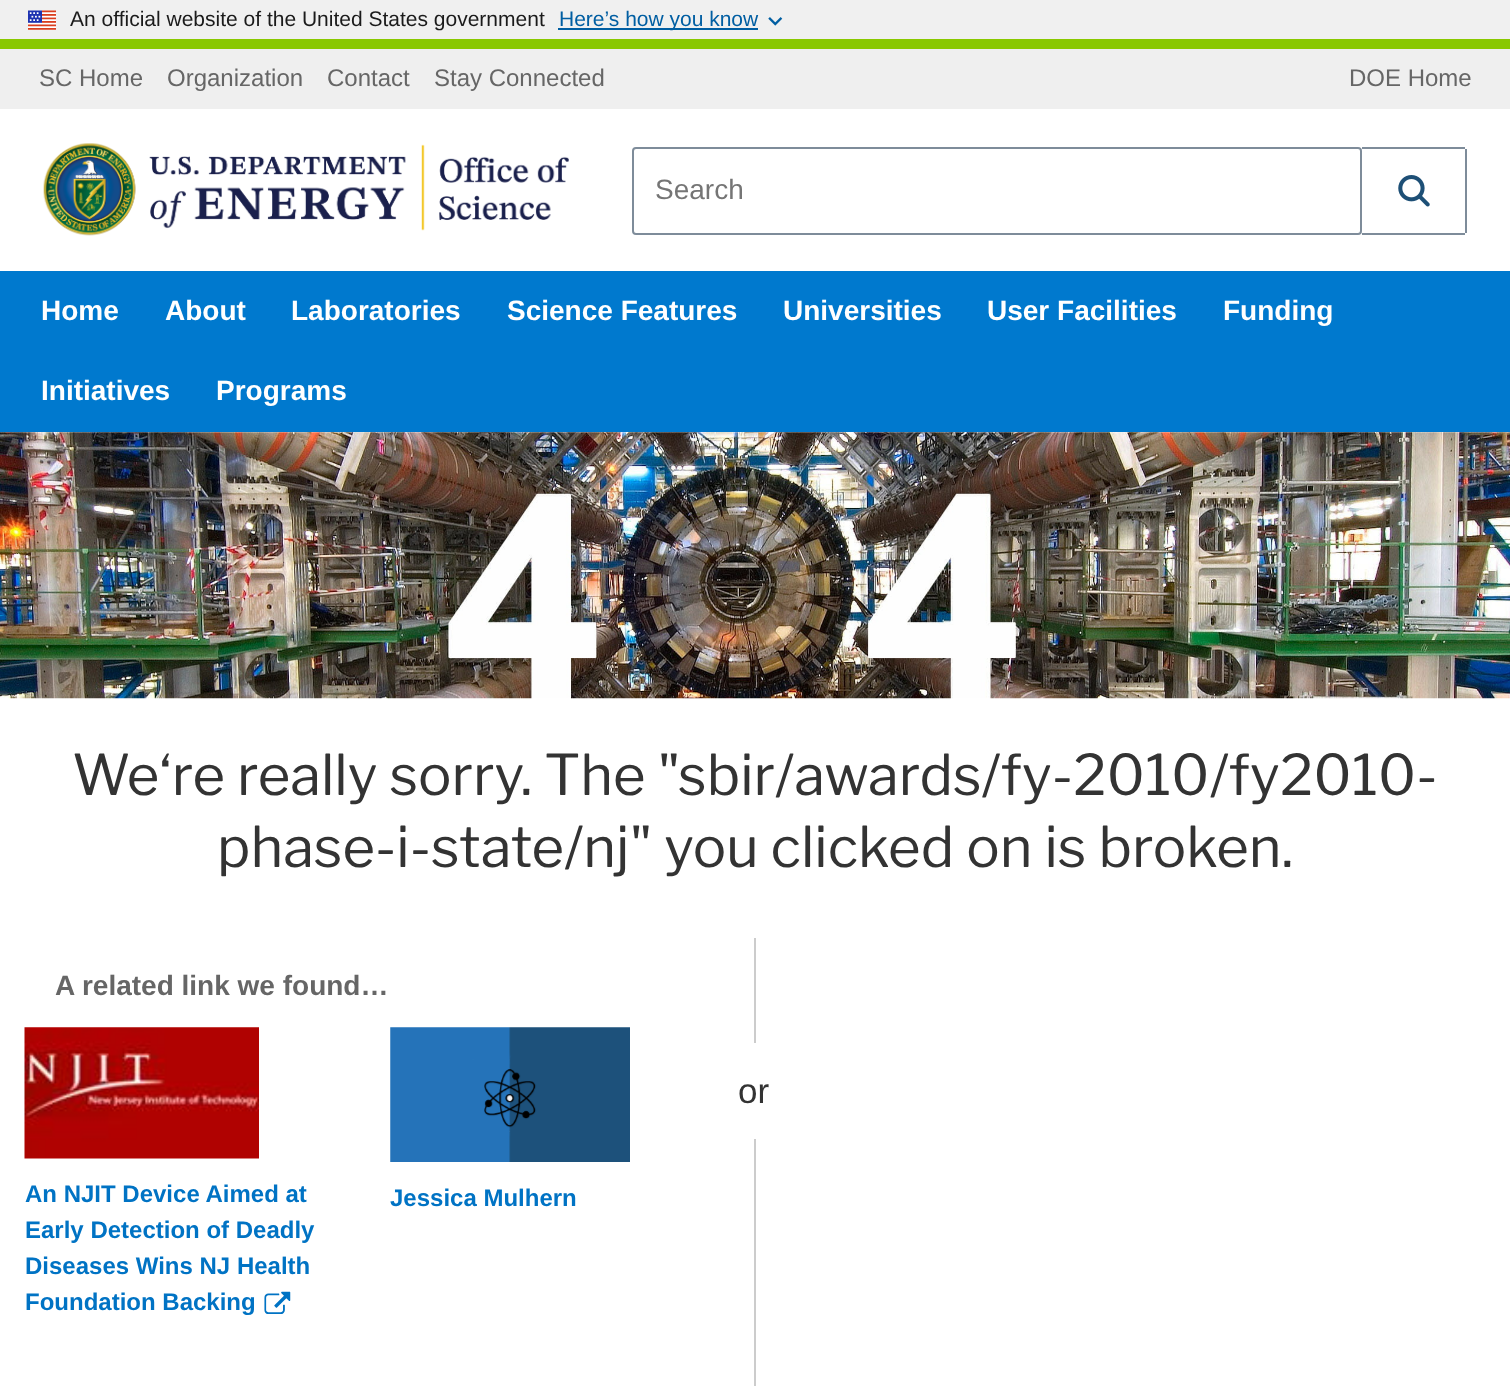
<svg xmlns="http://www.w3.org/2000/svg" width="1510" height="1386">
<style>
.a{font:21px Liberation Sans;fill:#1b1b1b}
.b{font:21px Liberation Sans;fill:#005ea2}
.c{font:24px Liberation Sans;fill:#666}
.d{font:28px Liberation Sans;fill:#757575}
.e{font:bold 28px Liberation Sans;fill:#fff}
.f{font:56px Libre Franklin;fill:#333}
.g{font:bold 28px Liberation Sans;fill:#666}
.h{font:35px Liberation Sans;fill:#333}
.i{font:bold 24px Liberation Sans;fill:#0073c4}
</style>
<rect width="100%" height="100%" fill="#fff"/>
<path fill="#f0f0f0" d="M0 0h1510v39H0z"/>
<image href="1.png" x="28" y="10" width="28" height="20"/>
<path fill="#005ea2" d="M558 28h200v2H558z"/>
<image href="2.png" x="768" y="17" width="15" height="9"/>
<path fill="#89c800" d="M0 39h1510v10H0z"/>
<path fill="#efefef" d="M0 49h1510v60H0z"/>
<image href="3.png" x="43" y="143" width="526" height="93"/>
<rect fill="none" stroke="#7e8c9a" stroke-width="2" x="633" y="148" width="728" height="86" rx="3"/>
<path fill="#7e8c9a" d="M1362 147h103v2H1362z"/>
<path fill="#7e8c9a" d="M1465 149h2v84H1465z"/>
<path fill="#7e8c9a" d="M1362 233h103v2H1362z"/>
<image href="4.png" x="1398" y="175" width="32" height="32"/>
<path fill="#0079ce" d="M0 271h1510v161H0z"/>
<image href="5.png" x="0" y="432" width="1510" height="267"/>
<path fill="#ccc" d="M754 938h2v448H754z"/>
<path fill="#fff" d="M754 1043h2v96H754z"/>
<image href="6.png" x="24" y="1027" width="235" height="132"/>
<image href="7.png" x="264" y="1291" width="27" height="23"/>
<image href="8.png" x="390" y="1027" width="240" height="135"/>
<text class="a" x="70" y="26">An official website of the United States government</text>
<text class="b" x="559" y="26">Here’s how you know</text>
<text class="c" x="39" y="86">SC Home</text>
<text class="c" x="167" y="86">Organization</text>
<text class="c" x="327" y="86">Contact</text>
<text class="c" x="434" y="86">Stay Connected</text>
<text class="c" x="1349" y="86">DOE Home</text>
<text class="d" x="655" y="199">Search</text>
<text class="e" x="41" y="320">Home</text>
<text class="e" x="165" y="320">About</text>
<text class="e" x="291" y="320">Laboratories</text>
<text class="e" x="507" y="320">Science Features</text>
<text class="e" x="783" y="320">Universities</text>
<text class="e" x="987" y="320">User Facilities</text>
<text class="e" x="1223" y="320">Funding</text>
<text class="e" x="41" y="400">Initiatives</text>
<text class="e" x="216" y="400">Programs</text>
<text class="f" x="72" y="795">We‘re really sorry. The "sbir/awards/fy-2010/fy2010-</text>
<text class="f" x="217" y="867">phase-i-state/nj" you clicked on is broken.</text>
<text class="g" x="55" y="995">A related link we found…</text>
<text class="h" x="738" y="1103">or</text>
<text class="i" x="25" y="1202">An NJIT Device Aimed at</text>
<text class="i" x="25" y="1238">Early Detection of Deadly</text>
<text class="i" x="25" y="1274">Diseases Wins NJ Health</text>
<text class="i" x="25" y="1310">Foundation Backing</text>
<text class="i" x="390" y="1206">Jessica Mulhern</text>
</svg>
